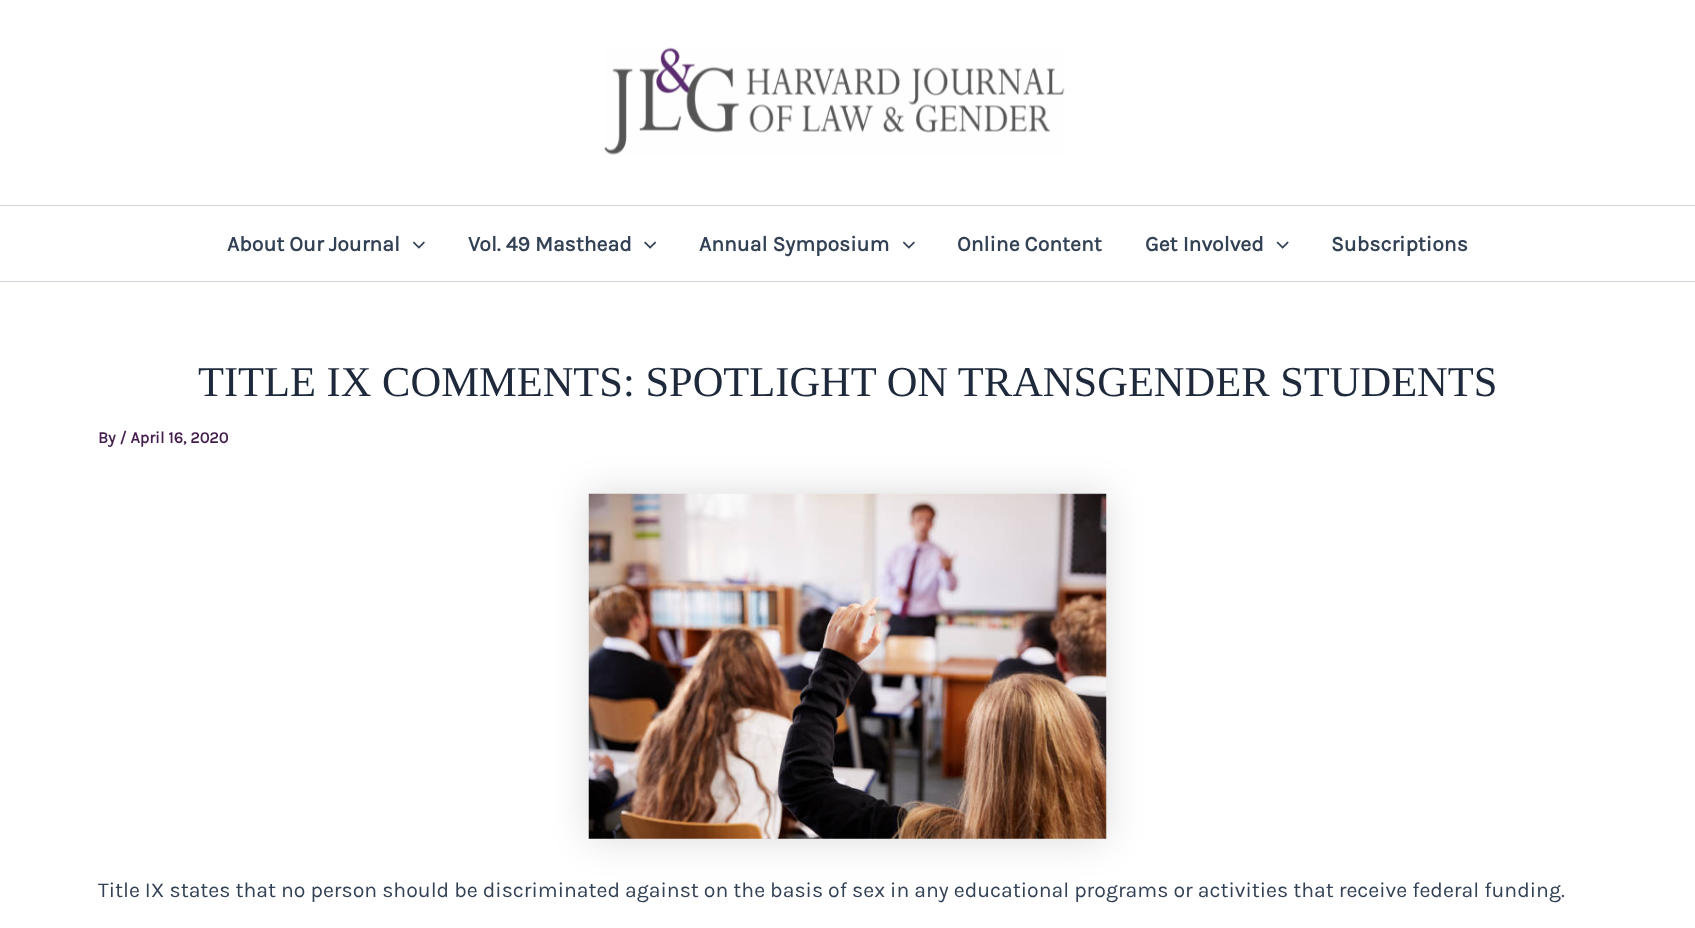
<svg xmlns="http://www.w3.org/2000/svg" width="1695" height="928">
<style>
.a{font:bold 21.25px Karla;fill:#334155}
.b{font:42.5px Liberation Serif;fill:#1e293b}
.c{font:bold 16.25px Karla;fill:#441e4e}
.d{font:21.25px Karla;fill:#334155}
</style>
<rect width="100%" height="100%" fill="#fff"/>
<path fill="#d1d5db" d="M0 205h1695v1H0z"/>
<image href="1.png" x="604" y="47" width="461" height="108"/>
<path fill="#d1d5db" d="M0 281h1695v1H0z"/>
<image href="2.png" x="413" y="241" width="12" height="8"/>
<image href="3.png" x="644" y="241" width="12" height="8"/>
<image href="2.png" x="903" y="241" width="12" height="8"/>
<image href="4.png" x="1276" y="241" width="13" height="8"/>
<path fill="#00000026" filter="blur(19px)" d="M589 494h517v345H589z"/>
<image href="5.png" x="588" y="493" width="519" height="346"/>
<text class="a" x="227" y="251">About Our Journal</text>
<text class="a" x="468" y="251">Vol. 49 Masthead</text>
<text class="a" x="699" y="251">Annual Symposium</text>
<text class="a" x="957" y="251">Online Content</text>
<text class="a" x="1145" y="251">Get Involved</text>
<text class="a" x="1331" y="251">Subscriptions</text>
<text class="b" x="198" y="396">TITLE IX COMMENTS: SPOTLIGHT ON TRANSGENDER STUDENTS</text>
<text class="c" x="98" y="443">By / April 16, 2020</text>
<text class="d" x="98" y="897">Title IX states that no person should be discriminated against on the basis of sex in any educational programs or activities that receive federal funding.</text>
</svg>
